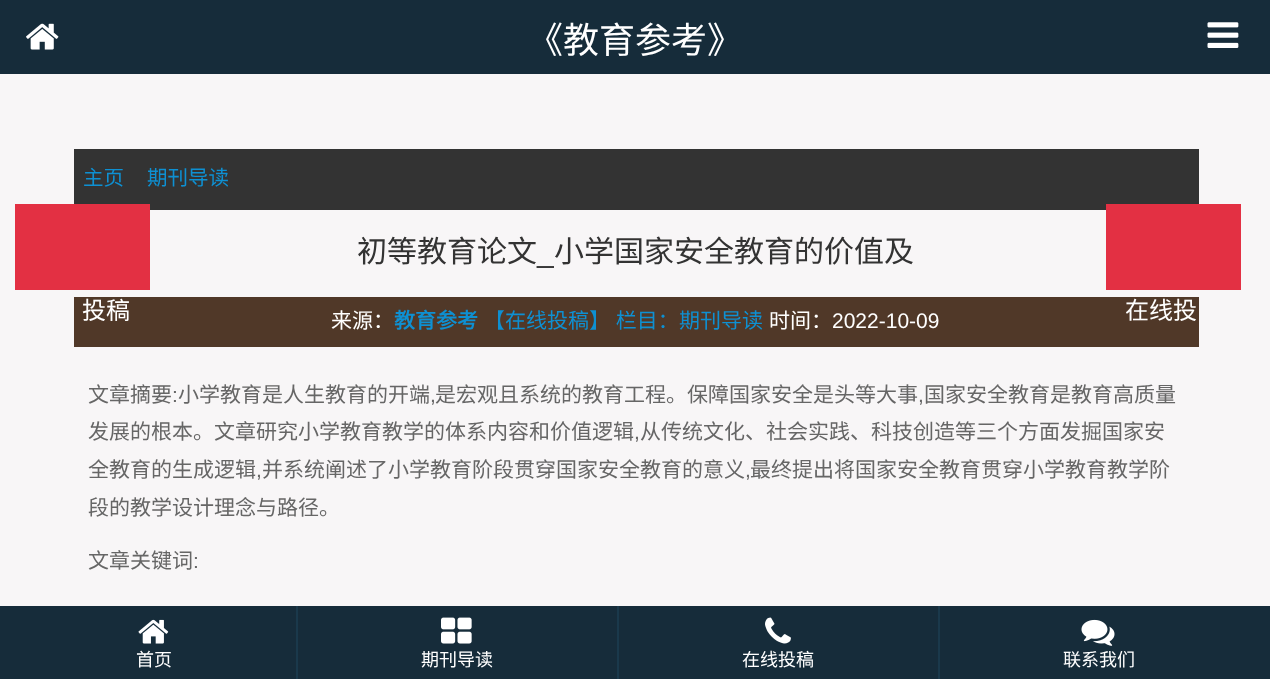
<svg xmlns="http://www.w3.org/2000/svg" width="1270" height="679">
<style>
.a{font:36px Noto Sans CJK SC;fill:#fff}
.b{font:20.5px Noto Sans CJK SC;fill:#0e90d2}
.c{font:30px Noto Sans CJK SC;fill:#333}
.d{font:30px Liberation Sans;fill:#333}
.e{font:21px Noto Sans CJK SC;fill:#fff}
.f{font:bold 21px Noto Sans CJK SC;fill:#0e90d2}
.g{font:21px Noto Sans CJK SC;fill:#0e90d2}
.h{font:21px Liberation Sans;fill:#fff}
.i{font:21px Noto Sans CJK SC;fill:#666}
.j{font:21px Liberation Sans;fill:#666}
.k{font:24px Noto Sans CJK SC;fill:#fff}
.l{font:18px Noto Sans CJK SC;fill:#fff}
</style>
<rect width="100%" height="100%" fill="#f8f6f7"/>
<path fill="#162c3a" d="M0 0h1270v74H0z"/>
<image href="1.png" x="26" y="23" width="33" height="27"/>
<image href="2.png" x="1207" y="22" width="32" height="26"/>
<path fill="#333" d="M74 149h1125v61H74z"/>
<path fill="#503828" d="M74 297h1125v50H74z"/>
<path fill="#e33043" d="M15 204h135v86H15z"/>
<path fill="#e33043" d="M1106 204h135v86H1106z"/>
<path fill="#162c3a" d="M0 606h1270v73H0z"/>
<path fill="#1a394b" d="M296 606h2v73H296z"/>
<image href="3.png" x="138" y="619" width="31" height="25"/>
<path fill="#1a394b" d="M617 606h2v73H617z"/>
<image href="4.png" x="441" y="617" width="31" height="27"/>
<path fill="#1a394b" d="M938 606h2v73H938z"/>
<image href="5.png" x="765" y="617" width="26" height="27"/>
<image href="6.png" x="1081" y="619" width="34" height="27"/>
<text class="a" x="527" y="53">《教育参考》</text>
<text class="b" x="83" y="185">主页</text>
<text class="b" x="147" y="185">期刊导读</text>
<text class="c" x="357" y="262">初等教育论文</text>
<text class="c" x="554" y="262">小学国家安全教育的价值及</text>
<text class="d" x="537" y="262">_</text>
<text class="e" x="331" y="328">来源：</text>
<text class="f" x="394" y="328">教育参考</text>
<text class="g" x="484" y="328" word-spacing="1">【在线投稿】 栏目：</text>
<text class="g" x="679" y="328">期刊导读</text>
<text class="e" x="769" y="328">时间：</text>
<text class="h" x="832" y="328">2022-10-09</text>
<text class="i" x="88" y="402">文章摘要</text>
<text class="j" x="172" y="402">:</text>
<text class="i" x="178" y="402">小学教育是人生教育的开端</text>
<text class="j" x="430" y="402">,</text>
<text class="i" x="435" y="402">是宏观且系统的教育工程。保障国家安全是头等大事</text>
<text class="j" x="918" y="402">,</text>
<text class="i" x="924" y="402">国家安全教育是教育高质量</text>
<text class="i" x="88" y="439">发展的根本。文章研究小学教育教学的体系内容和价值逻辑</text>
<text class="j" x="634" y="439">,</text>
<text class="i" x="640" y="439">从传统文化、社会实践、科技创造等三个方面发掘国家安</text>
<text class="i" x="88" y="477">全教育的生成逻辑</text>
<text class="j" x="256" y="477">,</text>
<text class="i" x="262" y="477">并系统阐述了小学教育阶段贯穿国家安全教育的意义</text>
<text class="j" x="745" y="477">,</text>
<text class="i" x="750" y="477">最终提出将国家安全教育贯穿小学教育教学阶</text>
<text class="i" x="88" y="515">段的教学设计理念与路径。</text>
<text class="i" x="88" y="568">文章关键词</text>
<text class="j" x="193" y="568">:</text>
<text class="k" x="82" y="319">投稿</text>
<text class="k" x="1125" y="319">在线投</text>
<text class="l" x="136" y="666">首页</text>
<text class="l" x="421" y="666">期刊导读</text>
<text class="l" x="742" y="666">在线投稿</text>
<text class="l" x="1063" y="666">联系我们</text>
</svg>
